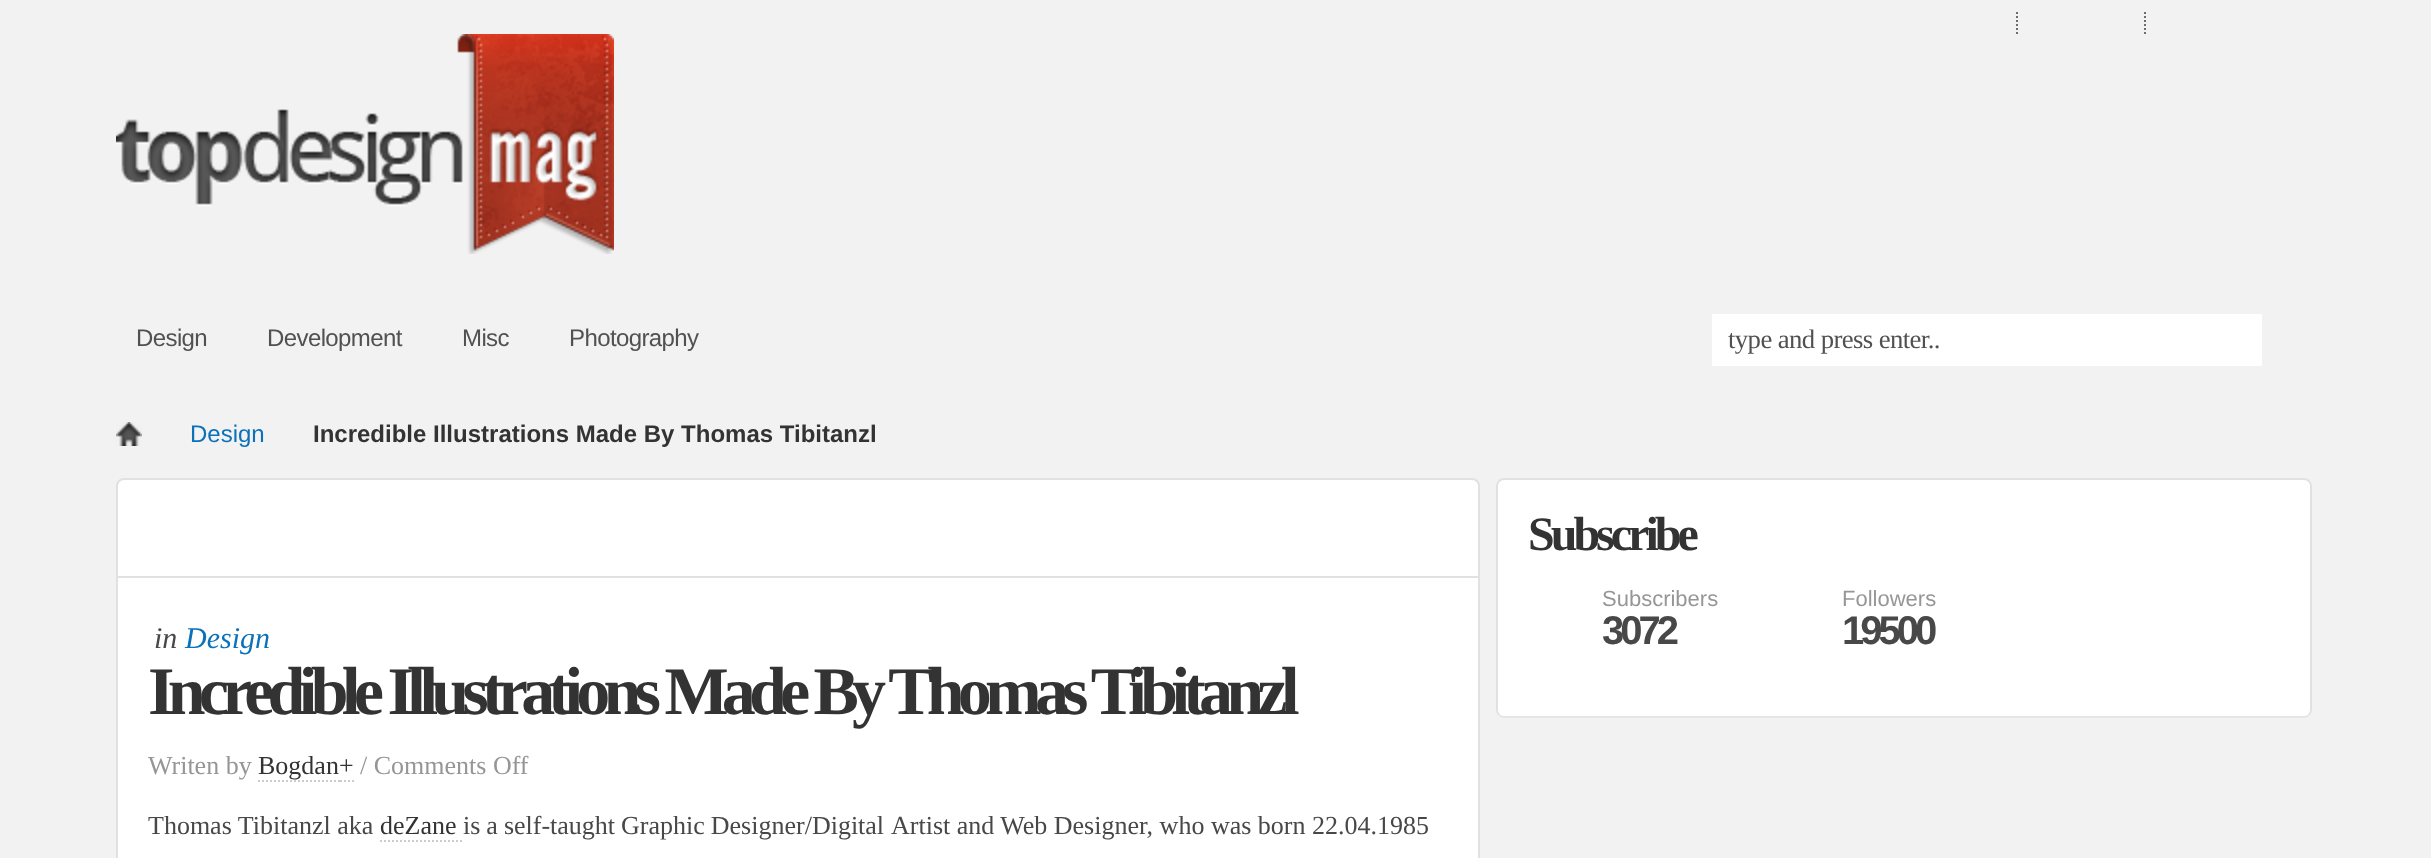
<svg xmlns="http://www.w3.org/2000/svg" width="2431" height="858">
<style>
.a{font:24px Liberation Sans;letter-spacing:-0.6px;fill:#515151}
.b{font:26.75px Liberation Serif;letter-spacing:-0.6px;fill:#515151}
.c{font:24px Liberation Sans;fill:#0b72ba}
.d{font:bold 24px Liberation Sans;fill:#333}
.e{font:bold 48px Liberation Serif;letter-spacing:-4px;fill:#333}
.f{font:22px Liberation Sans;fill:#969696}
.g{font:bold 40px Liberation Sans;letter-spacing:-4px;fill:#484848}
.h{font:italic 30px Liberation Serif;fill:#484848}
.i{font:italic 30px Liberation Serif;fill:#0b72ba}
.j{font:bold 68px Liberation Serif;letter-spacing:-6.8px;fill:#333}
.k{font:26px Liberation Serif;fill:#969696}
.l{font:26px Liberation Serif;fill:#333}
.m{font:26px Liberation Serif;fill:#484848}
</style>
<rect width="100%" height="100%" fill="#f2f2f2"/>
<path fill="none" stroke="#6d6d6d" stroke-width="2" stroke-dasharray="2 2" d="M2017 12v24"/>
<path fill="none" stroke="#6d6d6d" stroke-width="2" stroke-dasharray="2 2" d="M2145 12v24"/>
<image href="1.png" x="116" y="34" width="498" height="220"/>
<path fill="#fff" d="M1712 314h550v52H1712z"/>
<image href="2.png" x="116" y="422" width="26" height="24"/>
<rect fill="#fff" x="1496" y="478" width="816" height="240" rx="8"/>
<path fill="none" stroke="#e5e5e5" stroke-width="2" d="M2309 715c-1.5 1.5-3 2-5 2h-800c-2 0-3.5-.5-5-2"/>
<path fill="none" stroke="#e1e1e1" stroke-width="2" d="M1499 715c-1.5-1.5-2-3-2-5v-224c0-2 .5-3.5 2-5c1.5-1.5 3-2 5-2h800c2 0 3.5 .5 5 2c1.5 1.5 2 3 2 5v224c0 2-.5 3.5-2 5"/>
<rect fill="#fff" stroke="#e1e1e1" stroke-width="2" x="117" y="479" width="1362" height="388" rx="7"/>
<path fill="#e1e1e1" d="M118 576h1360v2H118z"/>
<path fill="none" stroke="#ccc" stroke-width="2" stroke-dasharray="2 2" d="M258 781h82"/>
<path fill="none" stroke="#ccc" stroke-width="2" d="M340 781h2m2 0h2m2 0h2m2 0h2"/>
<path fill="none" stroke="#ccc" stroke-width="2" stroke-dasharray="2 2" d="M380 841h82"/>
<text class="a" x="136" y="346">Design</text>
<text class="a" x="267" y="346">Development</text>
<text class="a" x="462" y="346">Misc</text>
<text class="a" x="569" y="346">Photography</text>
<text class="b" x="1728" y="348">type and press enter..</text>
<text class="c" x="190" y="442">Design</text>
<text class="d" x="313" y="442">Incredible Illustrations Made By Thomas Tibitanzl</text>
<text class="e" x="1528" y="550">Subscribe</text>
<text class="f" x="1602" y="606">Subscribers</text>
<text class="g" x="1602" y="644">3072</text>
<text class="f" x="1842" y="606">Followers</text>
<text class="g" x="1842" y="644">19500</text>
<text class="h" x="154" y="648">in</text>
<text class="i" x="185" y="648">Design</text>
<text class="j" x="148" y="714">Incredible Illustrations Made By Thomas Tibitanzl</text>
<text class="k" x="148" y="774">Writen by</text>
<text class="l" x="258" y="774">Bogdan+</text>
<text class="k" x="360" y="774">/ Comments Off</text>
<text class="m" x="148" y="834">Thomas Tibitanzl aka</text>
<text class="l" x="380" y="834">deZane</text>
<text class="m" x="463" y="834" word-spacing="-0.5">is a self-taught Graphic Designer/Digital</text>
<text class="m" x="891" y="834">Artist and Web Designer, who was born 22.04.1985</text>
</svg>
